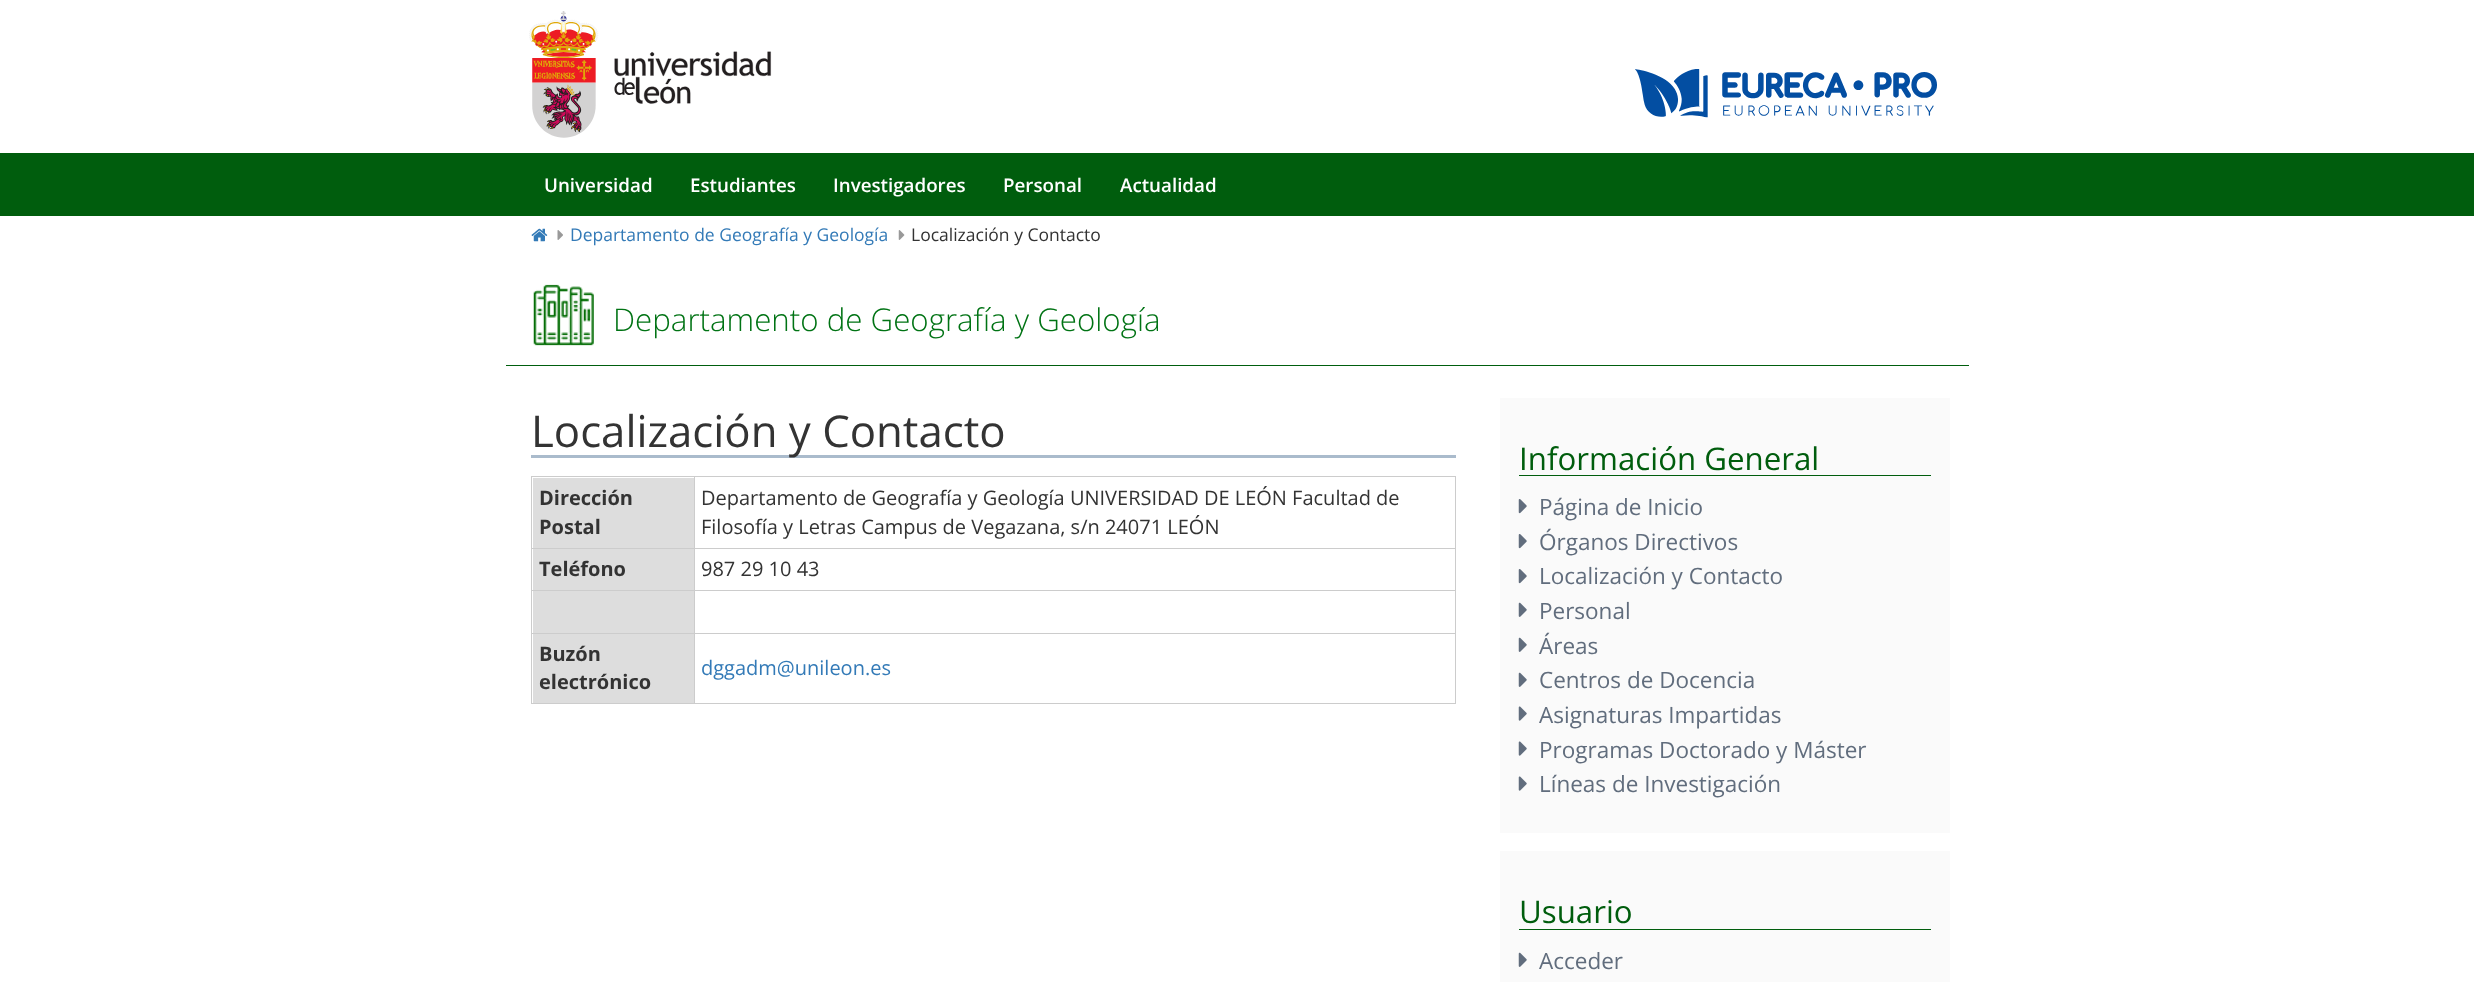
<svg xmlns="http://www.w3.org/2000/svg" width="2474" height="982">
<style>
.a{font:600 18.75px Open Sans;fill:#fff}
.b{font:17.5px Open Sans;fill:#337ab7}
.c{font:17.5px Open Sans;fill:#333}
.d{font:300 31.25px Open Sans;fill:#007314}
.e{font:43.75px Open Sans;fill:#333}
.f{font:bold 20px Open Sans;fill:#333}
.g{font:20px Open Sans;fill:#333}
.h{font:20px Open Sans;fill:#337ab7}
.i{font:31.25px Open Sans;fill:#005d0d}
.j{font:22.5px Open Sans;fill:#616d7d}
</style>
<rect width="100%" height="100%" fill="#fff"/>
<image href="1.png" x="529" y="11" width="243" height="127"/>
<image href="2.png" x="1635" y="69" width="302" height="49"/>
<path fill="#005d0d" d="M0 153h2474v63H0z"/>
<image href="3.png" x="531" y="228" width="17" height="14"/>
<image href="4.png" x="557" y="230" width="6" height="10"/>
<image href="5.png" x="898" y="230" width="7" height="10"/>
<path fill="#005e0e" d="M506 365h1463v1H506z"/>
<image href="6.png" x="533" y="284" width="61" height="62"/>
<path fill="#abc" d="M531 455h925v3H531z"/>
<path fill="#ddd" d="M533 478h161v70H533z"/>
<path fill="#ccc" d="M694 476h762v1H694z"/>
<path fill="#ccc" d="M694 548h762v1H694z"/>
<path fill="#ccc" d="M694 590h762v1H694z"/>
<path fill="#ccc" d="M694 633h762v1H694z"/>
<path fill="#ccc" d="M1455 633h1v71H1455z"/>
<path fill="#ccc" d="M694 703h762v1H694z"/>
<path fill="#ccc" d="M694 633h1v71H694z"/>
<path fill="#ccc" d="M531 633h164v1H531z"/>
<path fill="#ccc" d="M694 590h1v44H694z"/>
<path fill="#ccc" d="M531 590h164v1H531z"/>
<path fill="#ccc" d="M694 548h1v43H694z"/>
<path fill="#ccc" d="M531 548h164v1H531z"/>
<path fill="#ccc" d="M694 476h1v73H694z"/>
<path fill="#ccc" d="M531 476h164v1H531z"/>
<path fill="#ccc" d="M531 703h164v1H531z"/>
<path fill="#ccc" d="M531 633h1v71H531z"/>
<path fill="#ccc" d="M531 590h1v44H531z"/>
<path fill="#ccc" d="M531 548h1v43H531z"/>
<path fill="#ccc" d="M531 476h1v73H531z"/>
<path fill="#ccc" d="M1455 590h1v44H1455z"/>
<path fill="#ccc" d="M1455 548h1v43H1455z"/>
<path fill="#ccc" d="M1455 476h1v73H1455z"/>
<path fill="#ddd" d="M533 549h161v41H533z"/>
<path fill="#ddd" d="M533 591h161v42H533z"/>
<path fill="#ddd" d="M533 634h161v69H533z"/>
<path fill="#fafafa" d="M1500 398h450v435H1500z"/>
<path fill="#005d0d" d="M1519 475h412v1H1519z"/>
<image href="7.png" x="1518" y="499" width="9" height="15"/>
<image href="7.png" x="1518" y="534" width="9" height="15"/>
<image href="7.png" x="1518" y="569" width="9" height="15"/>
<image href="8.png" x="1518" y="602" width="9" height="15"/>
<image href="8.png" x="1518" y="637" width="9" height="15"/>
<image href="8.png" x="1518" y="672" width="9" height="15"/>
<image href="9.png" x="1518" y="706" width="9" height="15"/>
<image href="9.png" x="1518" y="741" width="9" height="15"/>
<image href="9.png" x="1518" y="776" width="9" height="15"/>
<path fill="#fafafa" d="M1500 851h450v131H1500z"/>
<path fill="#005d0d" d="M1519 929h412v1H1519z"/>
<image href="8.png" x="1518" y="952" width="9" height="15"/>
<text class="a" x="544" y="192">Universidad</text>
<text class="a" x="690" y="192">Estudiantes</text>
<text class="a" x="833" y="192">Investigadores</text>
<text class="a" x="1003" y="192">Personal</text>
<text class="a" x="1120" y="192">Actualidad</text>
<text class="b" x="570" y="241">Departamento de Geografía y Geología</text>
<text class="c" x="911" y="241">Localización y Contacto</text>
<text class="d" x="613" y="331">Departamento de Geografía y Geología</text>
<text class="e" x="531" y="447">Localización y Contacto</text>
<text class="f" x="539" y="505">Dirección</text>
<text class="f" x="539" y="534">Postal</text>
<text class="g" x="701" y="505">Departamento de Geografía y Geología UNIVERSIDAD DE LEÓN Facultad de</text>
<text class="g" x="701" y="534">Filosofía y Letras Campus de Vegazana, s/n 24071 LEÓN</text>
<text class="f" x="539" y="576">Teléfono</text>
<text class="g" x="701" y="576">987 29 10 43</text>
<text class="f" x="539" y="661">Buzón</text>
<text class="f" x="539" y="689">electrónico</text>
<text class="h" x="701" y="675">dggadm@unileon.es</text>
<text class="i" x="1519" y="470">Información General</text>
<text class="j" x="1539" y="515">Página de Inicio</text>
<text class="j" x="1539" y="550">Órganos Directivos</text>
<text class="j" x="1539" y="584">Localización y Contacto</text>
<text class="j" x="1539" y="619">Personal</text>
<text class="j" x="1539" y="654">Áreas</text>
<text class="j" x="1539" y="688">Centros de Docencia</text>
<text class="j" x="1539" y="723">Asignaturas Impartidas</text>
<text class="j" x="1539" y="758">Programas Doctorado y Máster</text>
<text class="j" x="1539" y="792">Líneas de Investigación</text>
<text class="i" x="1519" y="923">Usuario</text>
<text class="j" x="1539" y="969">Acceder</text>
</svg>
